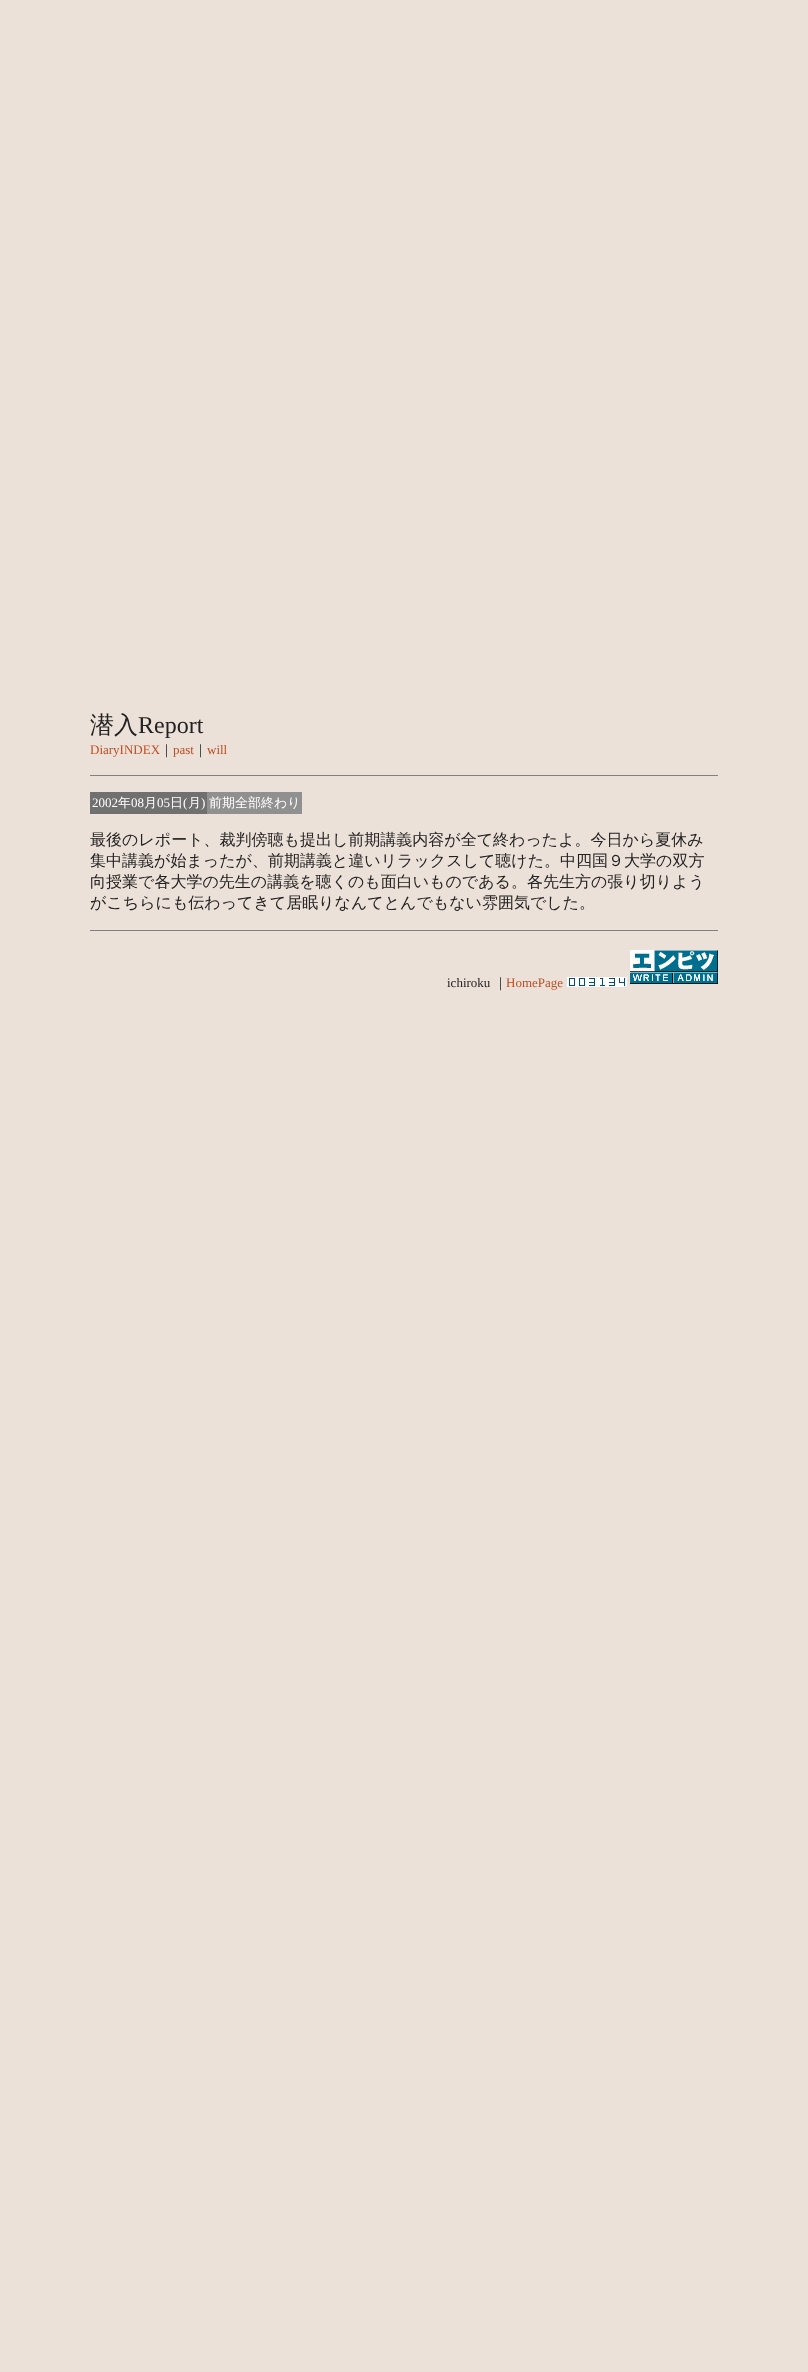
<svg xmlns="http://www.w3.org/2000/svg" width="808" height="2372">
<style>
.a{font:500 24px WenQuanYi Zen Hei;fill:#222}
.b{font:24px Liberation Serif;fill:#222}
.c{font:13px Liberation Serif;fill:#bd4e25}
.d{font:500 13px WenQuanYi Zen Hei;fill:#222}
.e{font:13px Liberation Serif;fill:#fff}
.f{font:500 13px WenQuanYi Zen Hei;fill:#fff}
.g{font:500 16px WenQuanYi Zen Hei;fill:#222}
.h{font:13px Liberation Serif;fill:#222}
</style>
<rect width="100%" height="100%" fill="#ece1d8"/>
<path fill="#808080" d="M90 775h628v1H90z"/>
<path fill="#707070" d="M90 792h117v22H90z"/>
<path fill="#909090" d="M207 792h95v22H207z"/>
<path fill="#808080" d="M90 930h628v1H90z"/>
<image href="1.png" x="567" y="977" width="60" height="10"/>
<image href="2.png" x="630" y="950" width="88" height="34"/>
<text class="a" x="90" y="733">潜入</text>
<text class="b" x="138" y="733">Report</text>
<text class="c" x="90" y="754">DiaryINDEX</text>
<text class="d" x="160" y="754">｜</text>
<text class="c" x="173" y="754">past</text>
<text class="d" x="194" y="754">｜</text>
<text class="c" x="207" y="754">will</text>
<text class="e" x="92" y="807">2002</text>
<text class="f" x="118" y="807">年</text>
<text class="e" x="131" y="807">08</text>
<text class="f" x="144" y="807">月</text>
<text class="e" x="157" y="807">05</text>
<text class="f" x="170" y="807">日</text>
<text class="e" x="183" y="807">(</text>
<text class="f" x="188" y="807">月</text>
<text class="e" x="201" y="807">)</text>
<text class="f" x="209" y="807">前期全部終わり</text>
<text class="g" x="90" y="845">最後のレポート、裁判傍聴も提出し前期講義内容が全て終わったよ。今日から夏休み</text>
<text class="g" x="90" y="866">集中講義が始まったが、前期講義と違いリラックスして聴けた。中四国９大学の双方</text>
<text class="g" x="90" y="887">向授業で各大学の先生の講義を聴くのも面白いものである。各先生方の張り切りよう</text>
<text class="g" x="90" y="908">がこちらにも伝わってきて居眠りなんてとんでもない雰囲気でした。</text>
<text class="h" x="447" y="987">ichiroku</text>
<text class="d" x="494" y="987">｜</text>
<text class="c" x="506" y="987">HomePage</text>
</svg>
